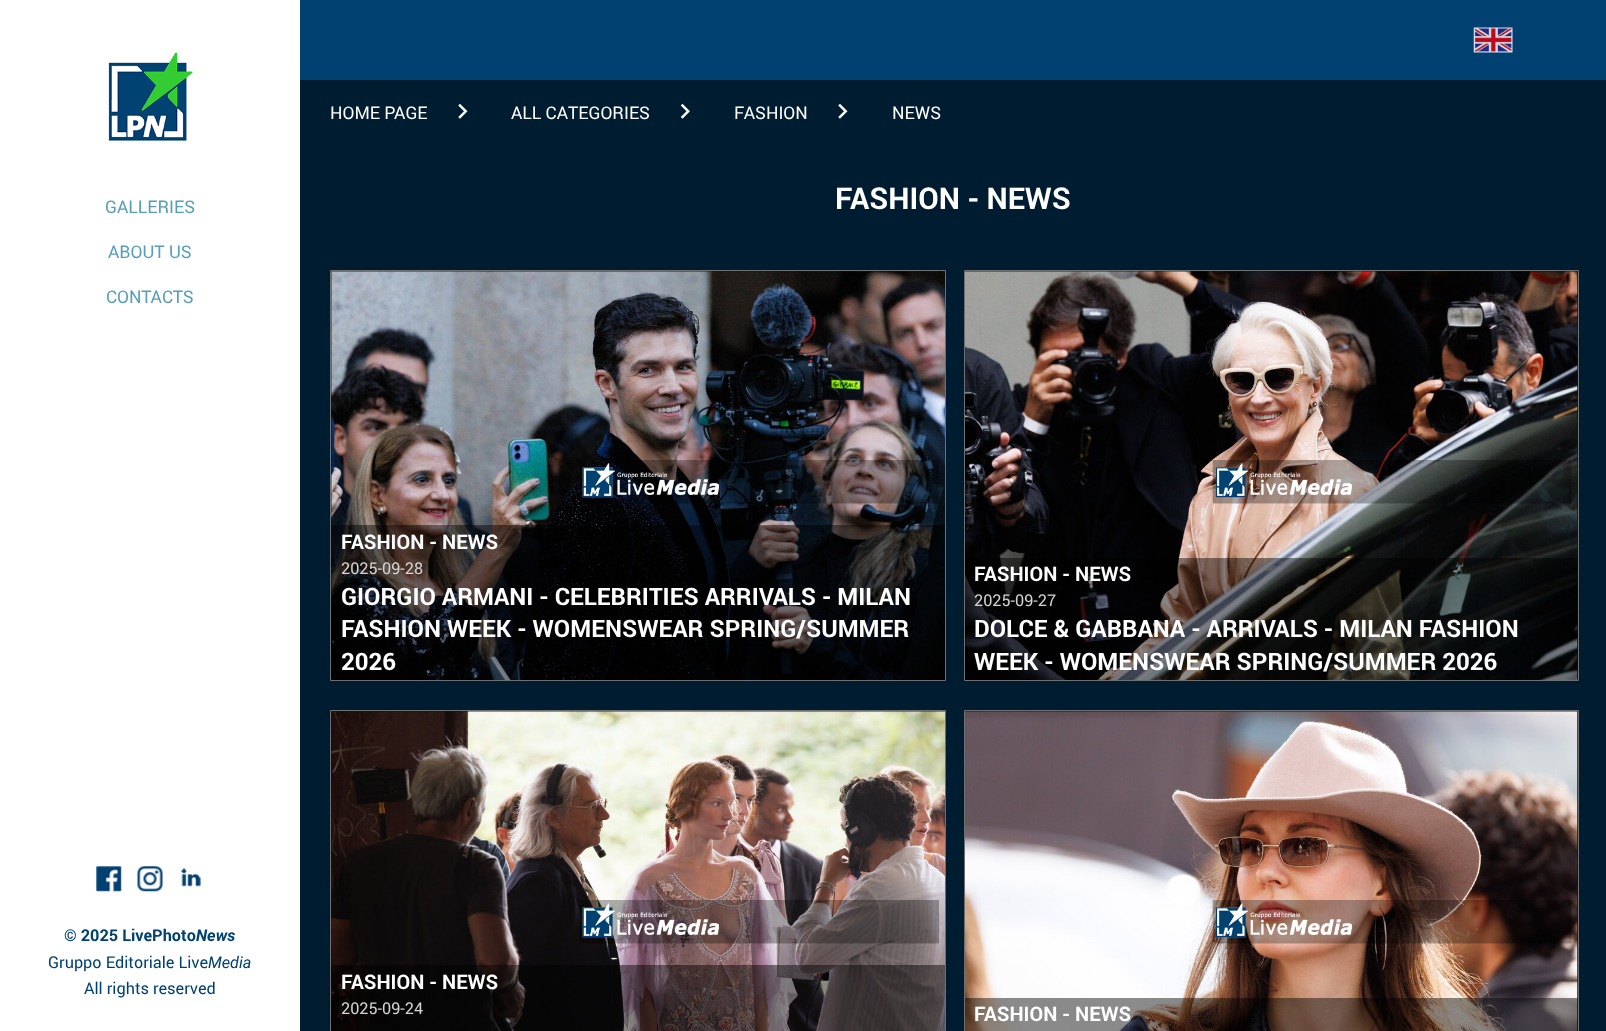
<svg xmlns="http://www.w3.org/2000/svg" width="1606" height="1031">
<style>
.a{font:17.5px Roboto;fill:#579fb8}
.b{font:bold 16.25px Roboto;fill:#004171}
.c{font:italic bold 16.25px Roboto;fill:#004171}
.d{font:16.25px Roboto;fill:#004171}
.e{font:italic 16.25px Roboto;fill:#004171}
.f{font:17.5px Roboto;fill:#fff}
.g{font:bold 30px Roboto;fill:#fff}
.h{font:bold 20px Roboto;fill:#fff}
.i{font:16.25px Roboto;fill:#d3d3d3}
.j{font:bold 24px Roboto;fill:#fff}
</style>
<rect width="100%" height="100%" fill="#001c31"/>
<path fill="#004171" d="M300 0h1306v80H300z"/>
<image href="1.png" x="1473" y="27" width="40" height="26"/>
<path fill="#fff" d="M0 0h300v1031H0z"/>
<image href="2.png" x="108" y="52" width="85" height="89"/>
<image href="3.png" x="96" y="866" width="26" height="26"/>
<image href="4.png" x="137" y="866" width="26" height="26"/>
<image href="5.png" x="180" y="868" width="21" height="19"/>
<image href="6.png" x="458" y="103" width="10" height="16"/>
<image href="7.png" x="680" y="103" width="10" height="16"/>
<image href="6.png" x="838" y="103" width="10" height="16"/>
<path fill="none" stroke="#6f6f6f" d="M330.5 270.5h615v410H330.5z"/>
<image href="8.png" x="331" y="271" width="614" height="409"/>
<path fill="#00000073" d="M331 525h614v155H331z"/>
<path fill="none" stroke="#6f6f6f" d="M964.5 270.5h614v410H964.5z"/>
<image href="9.png" x="965" y="271" width="613" height="409"/>
<path fill="#00000073" d="M965 558h613v122H965z"/>
<path fill="none" stroke="#6f6f6f" d="M330.5 710.5h615v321H330.5z"/>
<image href="10.png" x="331" y="711" width="614" height="320"/>
<path fill="#00000073" d="M331 965h614v66H331z"/>
<path fill="none" stroke="#6f6f6f" d="M964.5 710.5h614v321H964.5z"/>
<image href="11.png" x="965" y="711" width="613" height="320"/>
<path fill="#00000073" d="M965 998h613v33H965z"/>
<text class="a" x="105" y="213">GALLERIES</text>
<text class="a" x="108" y="258">ABOUT US</text>
<text class="a" x="106" y="303">CONTACTS</text>
<text class="b" x="64" y="941">© 2025 LivePhoto</text>
<text class="c" x="196" y="941">News</text>
<text class="d" x="48" y="968">Gruppo Editoriale Live</text>
<text class="e" x="208" y="968">Media</text>
<text class="d" x="84" y="994">All rights reserved</text>
<text class="f" x="330" y="119">HOME PAGE</text>
<text class="f" x="511" y="119">ALL CATEGORIES</text>
<text class="f" x="734" y="119">FASHION</text>
<text class="f" x="892" y="119">NEWS</text>
<text class="g" x="835" y="209">FASHION - NEWS</text>
<text class="h" x="341" y="549">FASHION - NEWS</text>
<text class="i" x="341" y="574">2025-09-28</text>
<text class="j" x="341" y="605">GIORGIO ARMANI - CELEBRITIES ARRIVALS - MILAN</text>
<text class="j" x="341" y="637">FASHION WEEK - WOMENSWEAR SPRING/SUMMER</text>
<text class="j" x="341" y="670">2026</text>
<text class="h" x="974" y="581">FASHION - NEWS</text>
<text class="i" x="974" y="606">2025-09-27</text>
<text class="j" x="974" y="637">DOLCE &amp; GABBANA - ARRIVALS - MILAN FASHION</text>
<text class="j" x="974" y="670">WEEK - WOMENSWEAR SPRING/SUMMER 2026</text>
<text class="h" x="341" y="989">FASHION - NEWS</text>
<text class="i" x="341" y="1014">2025-09-24</text>
<text class="h" x="974" y="1021">FASHION - NEWS</text>
</svg>
